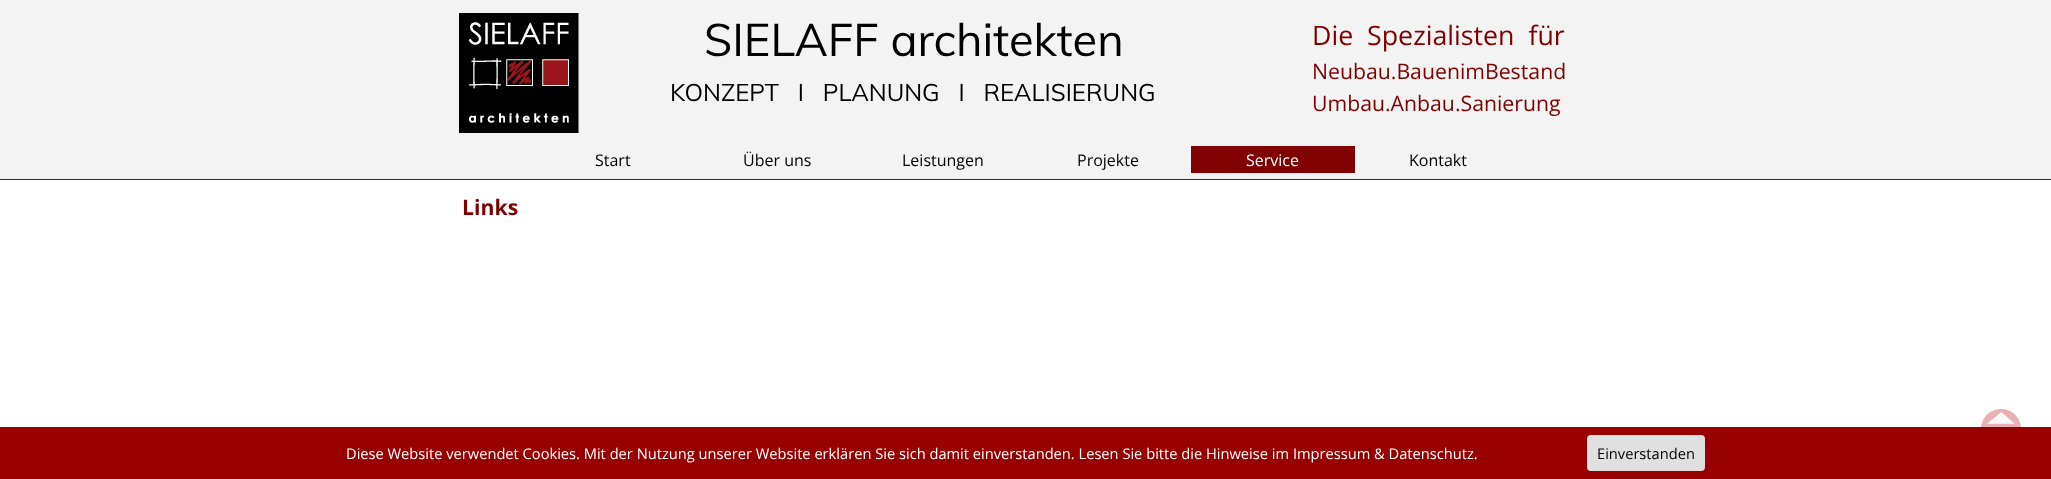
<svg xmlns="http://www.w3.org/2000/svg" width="2051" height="479">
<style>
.a{font:45.25px Muli;fill:#000}
.b{font:26.75px Open Sans;fill:#800000}
.c{font:21.25px Open Sans;fill:#800000}
.d{font:24px Muli;fill:#000}
.e{font:16px Open Sans;fill:#000}
.f{font:16px Open Sans;fill:#fff}
.g{font:bold 21.25px Open Sans;fill:#800000}
.h{font:14.67px Open Sans;fill:#fff}
.i{font:14.67px Open Sans;fill:#000}
</style>
<rect width="100%" height="100%" fill="#fff"/>
<path fill="#f3f3f3" d="M0 0h2051v179H0z"/>
<path fill="#900" d="M0 179h2051v1H0z"/>
<image href="1.png" x="459" y="13" width="120" height="120"/>
<path fill="#800000" d="M1191 146h164v27H1191z"/>
<image href="2.png" x="1981" y="409" width="40" height="18"/>
<path fill="#980000" d="M0 427h2051v52H0z"/>
<rect fill="#e0e0e0" x="1587" y="435" width="118" height="36" rx="4"/>
<text class="a" x="704" y="56">SIELAFF architekten</text>
<text class="b" xml:space="preserve" x="1312" y="45">Die  Spezialisten  für</text>
<text class="c" x="1312" y="79">Neubau.BauenimBestand</text>
<text class="c" x="1312" y="111">Umbau.Anbau.Sanierung</text>
<text class="d" xml:space="preserve" x="670" y="101">KONZEPT   I   PLANUNG   I   REALISIERUNG</text>
<text class="e" x="595" y="166">Start</text>
<text class="e" x="743" y="166">Über uns</text>
<text class="e" x="902" y="166">Leistungen</text>
<text class="e" x="1077" y="166">Projekte</text>
<text class="f" x="1246" y="166">Service</text>
<text class="e" x="1409" y="166">Kontakt</text>
<text class="g" x="462" y="215">Links</text>
<text class="h" x="346" y="459">Diese Website verwendet Cookies. Mit der Nutzung unserer Website erklären Sie sich damit einverstanden. Lesen Sie bitte die Hinweise im Impressum &amp; Datenschutz.</text>
<text class="i" x="1597" y="459">Einverstanden</text>
</svg>
